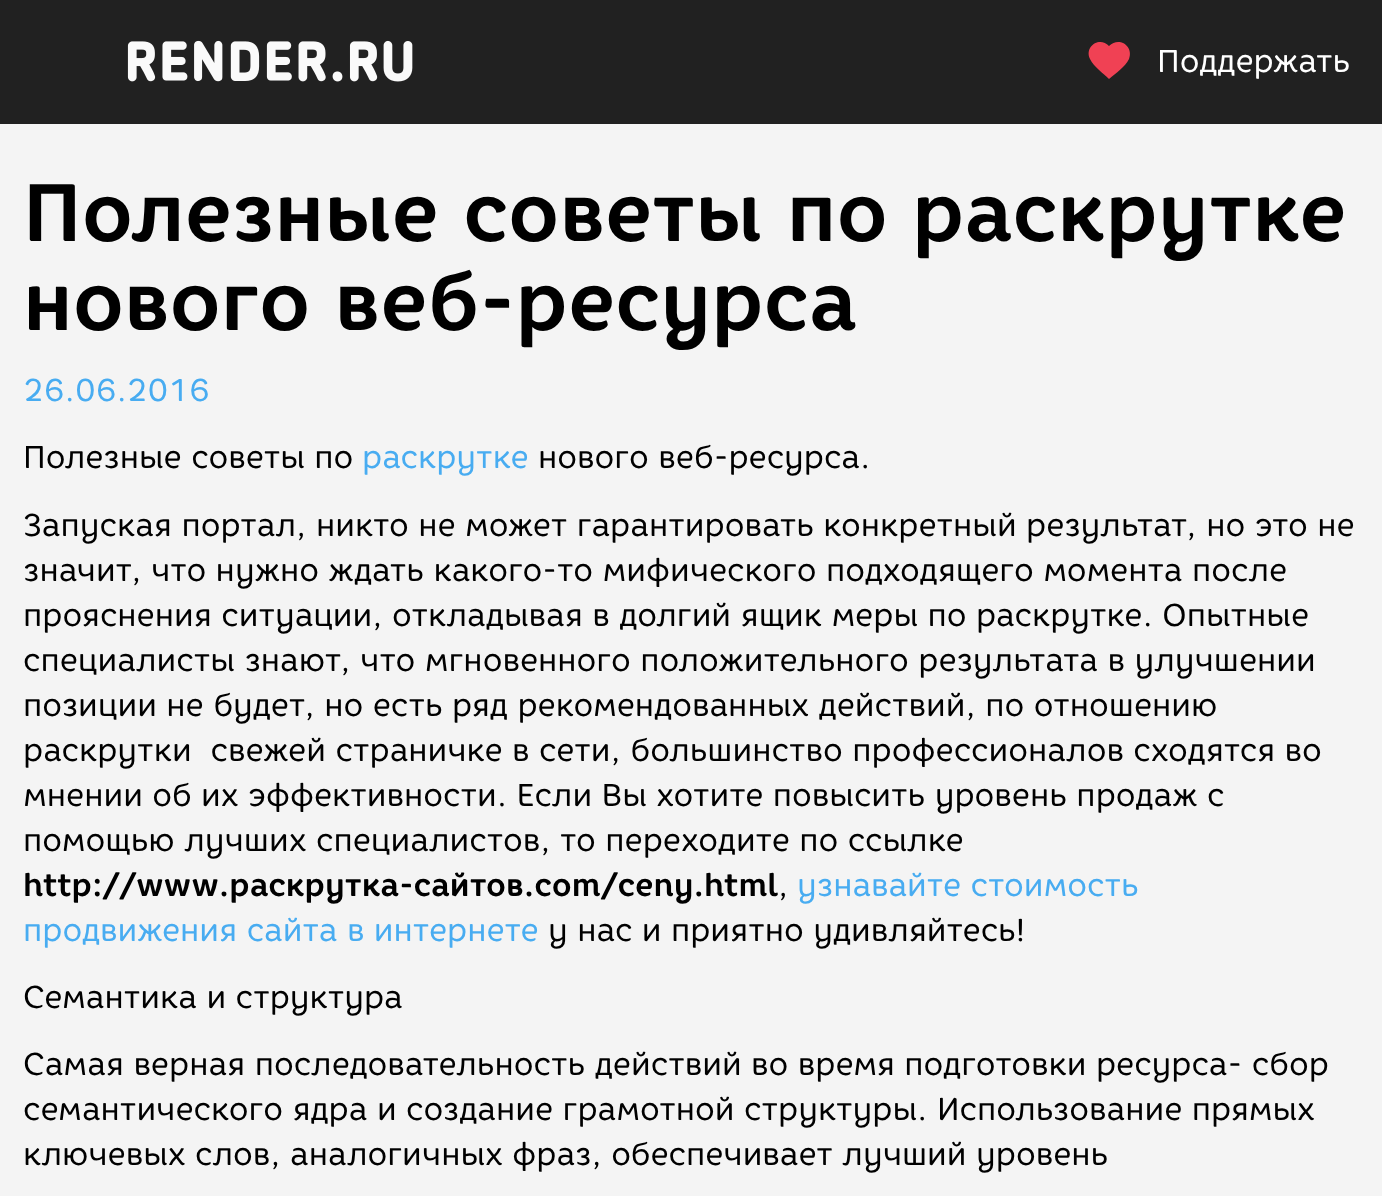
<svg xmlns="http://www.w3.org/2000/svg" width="1382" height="1196">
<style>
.a{font:31.5px 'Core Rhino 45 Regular';fill:#fff}
.b{font:bold 81px 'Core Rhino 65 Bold';fill:#000}
.c{font:31.5px 'Core Rhino 45 Regular';fill:#48acf1}
.d{font:31.5px 'Core Rhino 45 Regular';fill:#000}
.e{font:bold 31.5px 'Core Rhino 65 Bold';fill:#000}
</style>
<rect width="100%" height="100%" fill="#f4f4f4"/>
<path fill="#212121" d="M0 0h1382v124H0z"/>
<image href="1.png" x="127" y="40" width="286" height="42"/>
<path fill="#f04154" d="M1109 79c-6-6-15-12-19-20c-6-13 10-23 19-13c10-10 25 0 20 13c-4 8-13 14-20 20z"/>
<text class="a" x="1157" y="72">Поддержать</text>
<text class="b" x="23" y="241">Полезные советы по раскрутке</text>
<text class="b" x="23" y="330">нового веб-ресурса</text>
<text class="c" x="23" y="401">26.06.2016</text>
<text class="d" x="23" y="468">Полезные советы по</text>
<text class="c" x="362" y="468">раскрутке</text>
<text class="d" x="538" y="468">нового веб-ресурса.</text>
<text class="d" x="23" y="536">Запуская портал, никто не может гарантировать конкретный результат, но это не</text>
<text class="d" x="23" y="581">значит, что нужно ждать какого-то мифического подходящего момента после</text>
<text class="d" x="23" y="626">прояснения ситуации, откладывая в долгий ящик меры по раскрутке. Опытные</text>
<text class="d" x="23" y="671">специалисты знают, что мгновенного положительного результата в улучшении</text>
<text class="d" x="23" y="716">позиции не будет, но есть ряд рекомендованных действий, по отношению</text>
<text class="d" xml:space="preserve" x="23" y="761">раскрутки  свежей страничке в сети, большинство профессионалов сходятся во</text>
<text class="d" x="23" y="806">мнении об их эффективности. Если Вы хотите повысить уровень продаж с</text>
<text class="d" x="23" y="851">помощью лучших специалистов, то переходите по ссылке</text>
<text class="e" x="23" y="896">http://www.раскрутка-сайтов.com/ceny.html</text>
<text class="d" x="778" y="896">,</text>
<text class="c" x="797" y="896">узнавайте стоимость</text>
<text class="c" x="23" y="941">продвижения сайта в интернете</text>
<text class="d" x="548" y="941">у нас и приятно удивляйтесь!</text>
<text class="d" x="23" y="1008">Семантика и структура</text>
<text class="d" x="23" y="1075">Самая верная последовательность действий во время подготовки ресурса- сбор</text>
<text class="d" x="23" y="1120">семантического ядра и создание грамотной структуры. Использование прямых</text>
<text class="d" x="23" y="1165">ключевых слов, аналогичных фраз, обеспечивает лучший уровень</text>
</svg>
